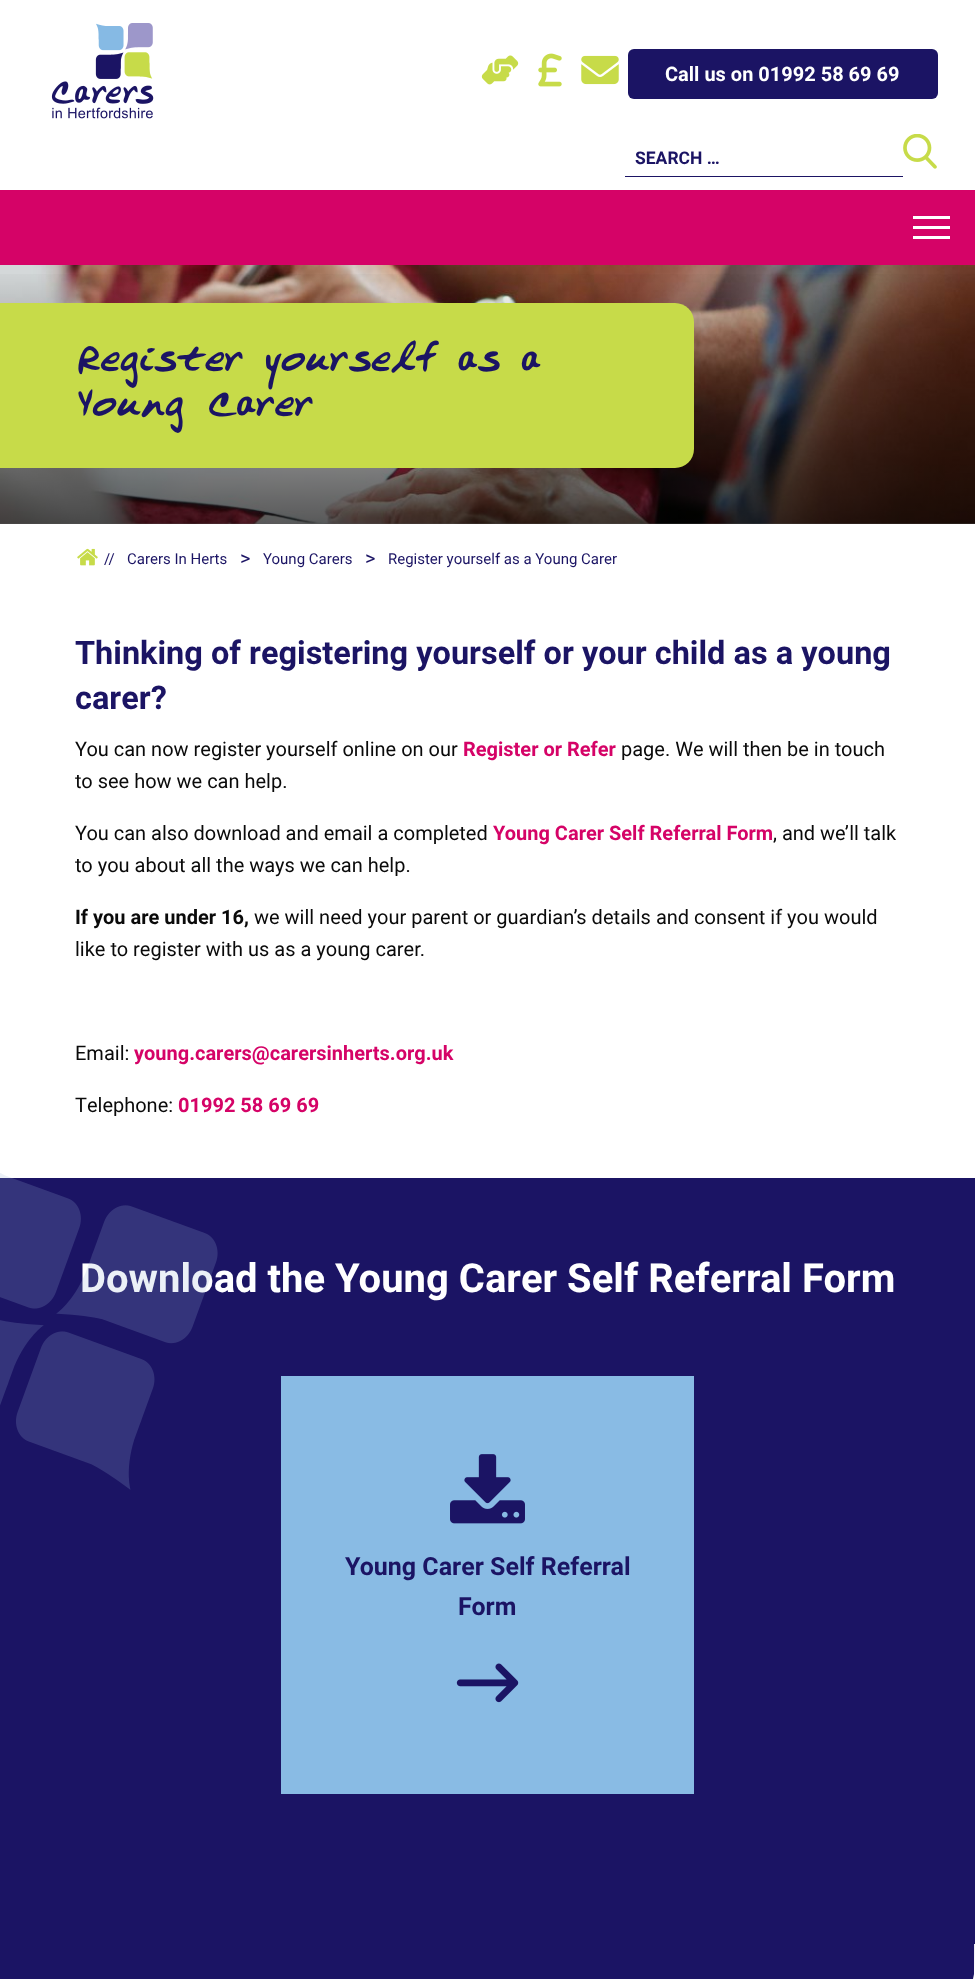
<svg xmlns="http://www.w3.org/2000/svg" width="975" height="1979">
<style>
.a{font:bold 20px Roboto;fill:#fff}
.b{font:bold 17.5px Roboto;fill:#1b1464}
.c{font:100 37.5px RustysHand;fill:#1b1464}
.d{font:15px Roboto;fill:#1b1464}
.e{font:20px Roboto;fill:#1b1464}
.f{font:bold 32.5px Roboto;fill:#1b1464}
.g{font:20px Roboto;fill:#0a0a0a}
.h{font:bold 20px Roboto;fill:#d50367}
.i{font:bold 20px Roboto;fill:#0a0a0a}
.j{font:bold 40px Roboto;fill:#fff}
.k{font:bold 25px Roboto;fill:#1b1464}
</style>
<defs>
<linearGradient id="g1" gradientUnits="userSpaceOnUse" x1="488" y1="265" x2="488" y2="524"><stop offset="0" stop-color="#000" stop-opacity="0"/><stop offset="1" stop-color="#000" stop-opacity="0.65"/></linearGradient>
</defs>
<rect width="100%" height="100%" fill="#fff"/>
<image href="1.png" x="51" y="23" width="103" height="96"/>
<image href="2.png" x="481" y="55" width="38" height="30"/>
<image href="3.png" x="538" y="53" width="24" height="34"/>
<image href="4.png" x="581" y="55" width="38" height="30"/>
<rect fill="#1b1464" x="628" y="49" width="310" height="50" rx="6"/>
<path fill="#1b1464" d="M625 176h278v1H625z"/>
<image href="5.png" x="903" y="134" width="34" height="35"/>
<path fill="#d50367" d="M0 190h975v75H0z"/>
<path fill="#fff" d="M913 226h37v3H913z"/>
<path fill="#fff" d="M913 216h37v3H913z"/>
<path fill="#fff" d="M913 236h37v3H913z"/>
<image href="6.png" x="0" y="265" width="975" height="259"/>
<path fill="url(#g1)" d="M0 274h975v250H0z"/>
<path fill="#c7db49" d="M0 303h675c10.5 0 19 8.5 19 19v127c0 10.5-8.5 19-19 19h-675z"/>
<image href="7.png" x="77" y="548" width="21" height="18"/>
<path fill="#1b1464" d="M0 1675v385c0 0 122-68 360-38l126 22c13 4 26 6 37 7l245 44c99 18 191-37 206-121l1-299z"/>
<path fill="#1b1464" d="M0 1178h975v766H0z"/>
<path fill="#89bbe4" d="M281 1376h413v418H281z"/>
<image href="9.png" x="450" y="1454" width="75" height="70"/>
<image href="10.png" x="456" y="1663" width="63" height="40"/>
<text class="a" x="665" y="81">Call us on 01992 58 69 69</text>
<text class="b" x="635" y="164">SEARCH …</text>
<text class="c" x="75" y="370">Register yourself as a</text>
<text class="c" x="75" y="415">Young Carer</text>
<text class="d" x="104" y="564">//</text>
<text class="d" x="127" y="564">Carers In Herts</text>
<text class="e" x="240" y="565">&gt;</text>
<text class="d" x="263" y="564">Young Carers</text>
<text class="e" x="365" y="565">&gt;</text>
<text class="d" x="388" y="564">Register yourself as a Young Carer</text>
<text class="f" x="75" y="664">Thinking of registering yourself or your child as a young</text>
<text class="f" x="75" y="709">carer?</text>
<text class="g" x="75" y="756">You can now register yourself online on our</text>
<text class="h" x="463" y="756">Register or Refer</text>
<text class="g" x="621" y="756">page. We will then be in touch</text>
<text class="g" x="75" y="788">to see how we can help.</text>
<text class="g" x="75" y="840">You can also download and email a completed</text>
<text class="h" x="493" y="840">Young Carer Self Referral Form</text>
<text class="g" x="773" y="840">, and we’ll talk</text>
<text class="g" x="75" y="872">to you about all the ways we can help.</text>
<text class="i" x="75" y="924">If you are under 16,</text>
<text class="g" x="254" y="924">we will need your parent or guardian’s details and consent if you would</text>
<text class="g" x="75" y="956">like to register with us as a young carer.</text>
<text class="g" x="75" y="1060">Email:</text>
<text class="h" x="134" y="1060">young.carers@carersinherts.org.uk</text>
<text class="g" x="75" y="1112">Telephone:</text>
<text class="h" x="178" y="1112">01992 58 69 69</text>
<text class="j" x="80" y="1292">Download the Young Carer Self Referral Form</text>
<image href="8.png" x="0" y="1173" width="218" height="317"/>
<text class="k" x="345" y="1575">Young Carer Self Referral</text>
<text class="k" x="458" y="1615">Form</text>
</svg>
